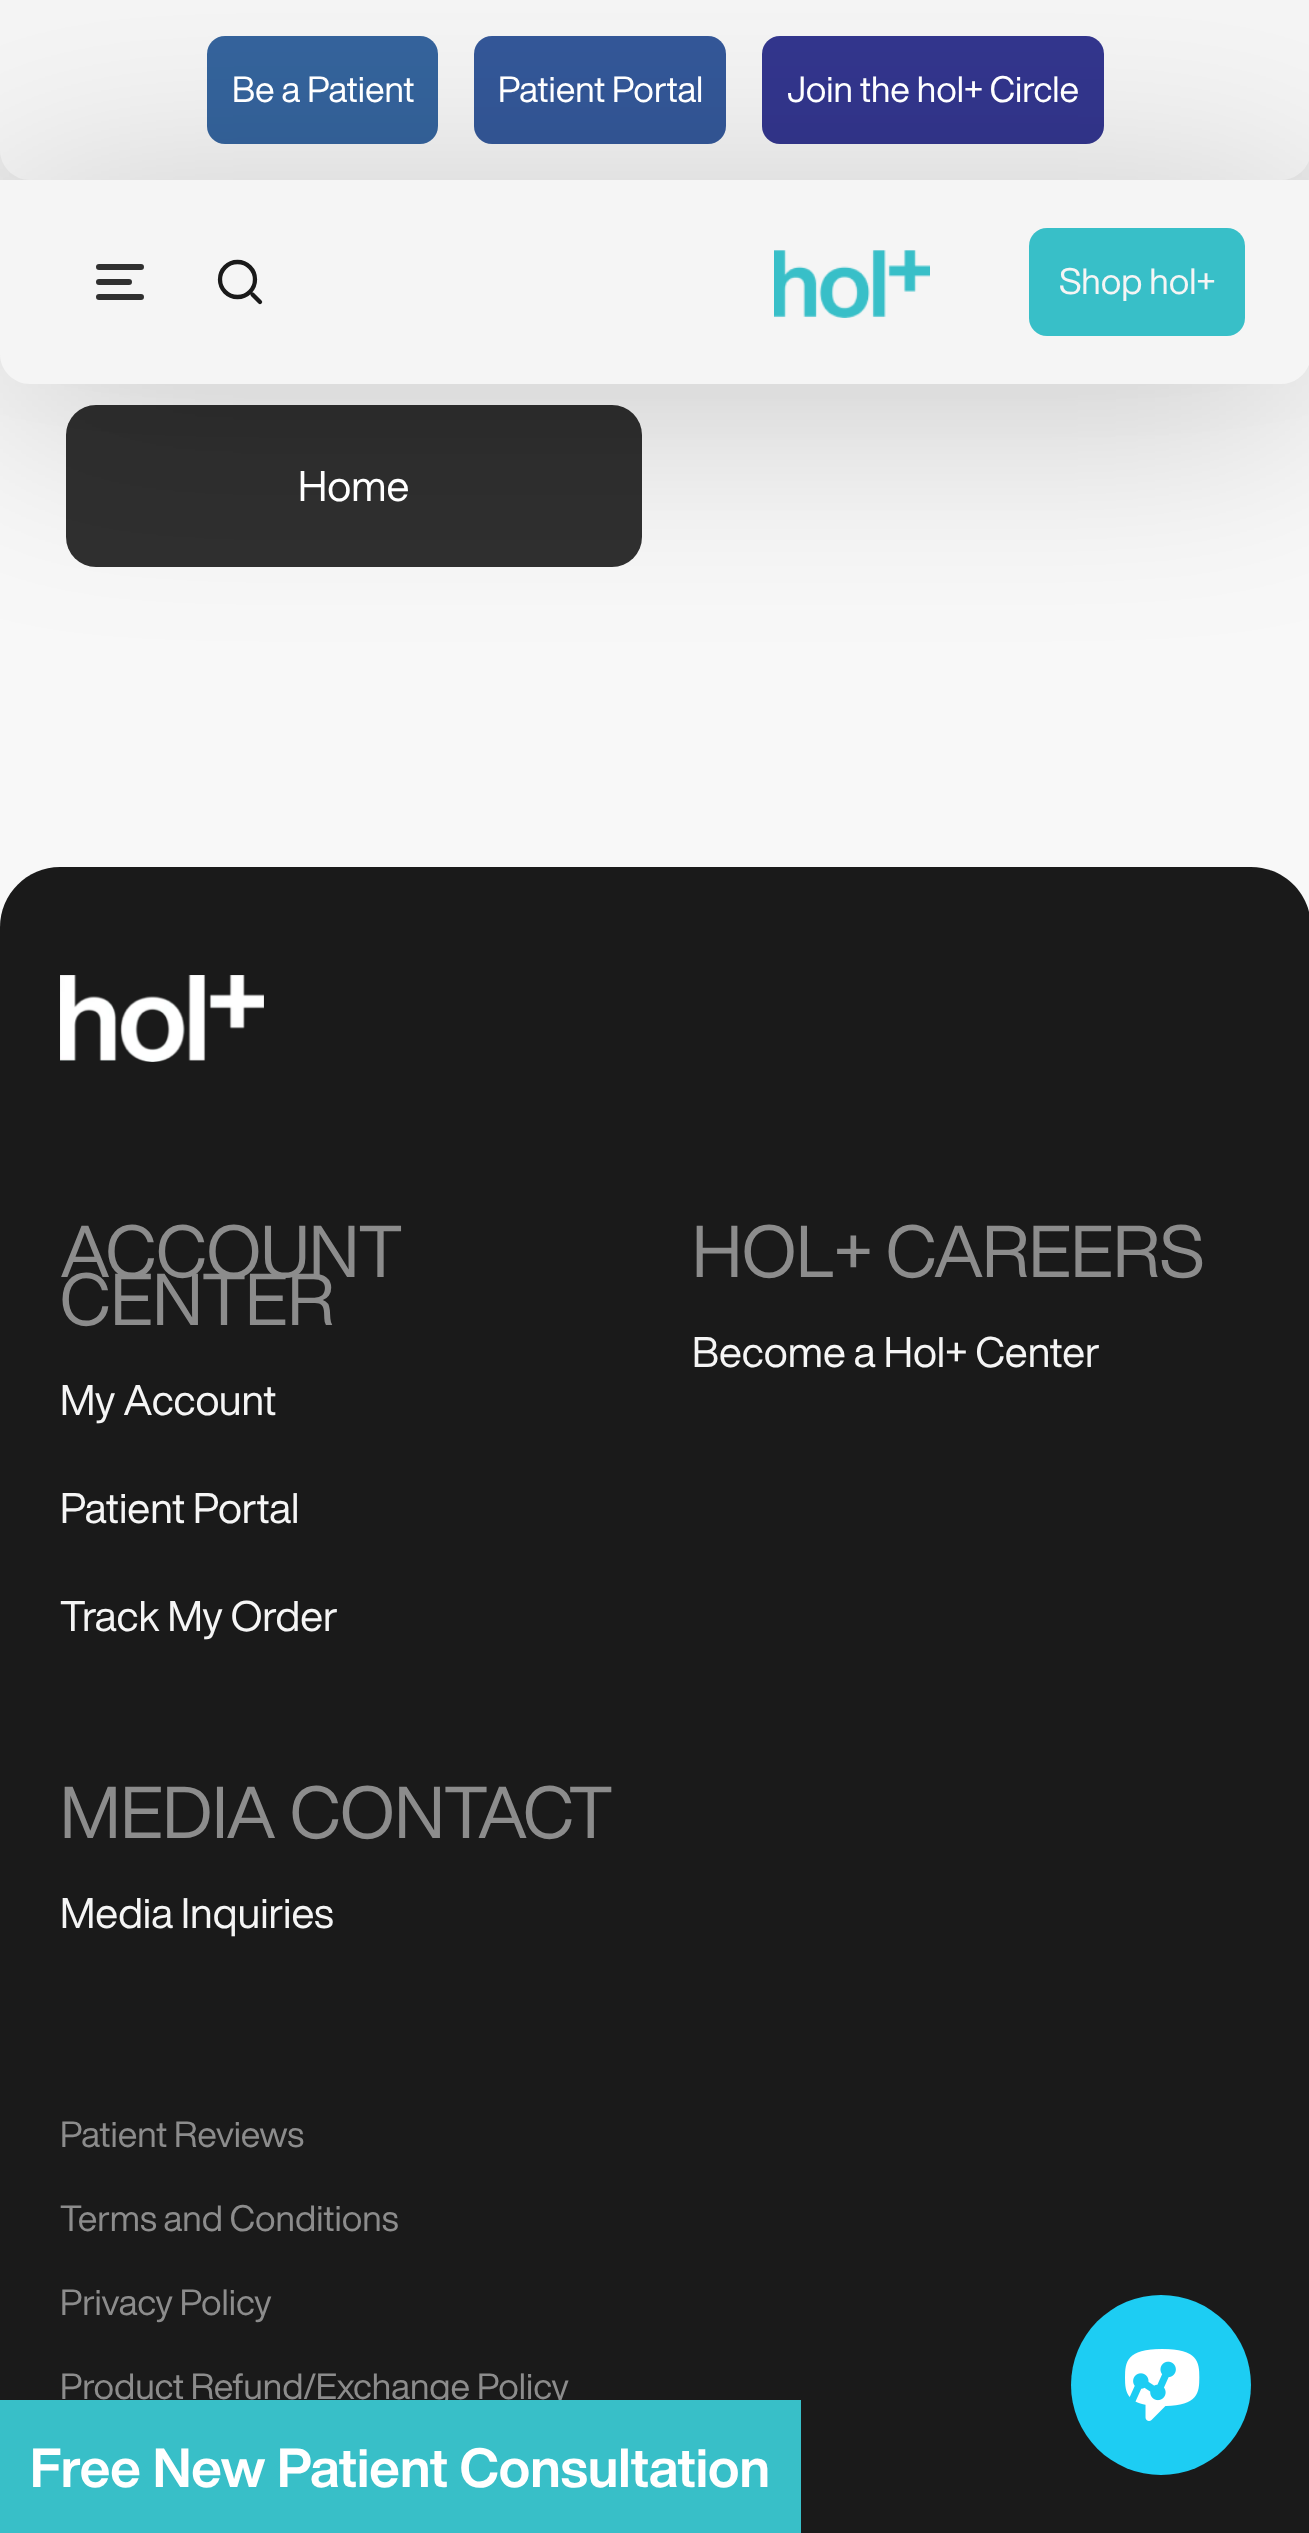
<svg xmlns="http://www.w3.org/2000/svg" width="1309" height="2533">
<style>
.a{font:36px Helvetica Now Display;fill:#fff}
.b{font:36px Helvetica Now Display;fill:#f5f5f5}
.c{font:42px Helvetica Now Display;fill:#fff}
.d{font:72px Helvetica Now Display;fill:#8c8c8c}
.e{font:42px Helvetica Now Display;fill:#f5f5f5}
.f{font:36px Helvetica Now Display;fill:#8c8c8c}
.g{font:bold 54px Helvetica Now Display;fill:#fff}
</style>
<rect width="100%" height="100%" fill="#f8f8f8"/>
<rect fill="#303030" x="66" y="405" width="576" height="162" rx="30"/>
<rect fill="#00000030" filter="blur(111px)" y="27" width="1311" height="180" rx="30"/>
<path fill="#f5f5f5" d="M0 0h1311v150c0 16.5-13.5 30-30 30h-1251c-16.5 0-30-13.5-30-30z"/>
<rect fill="#35649d" x="207" y="36" width="231" height="108" rx="18"/>
<rect fill="#345899" x="474" y="36" width="252" height="108" rx="18"/>
<rect fill="#33368e" x="762" y="36" width="342" height="108" rx="18"/>
<rect fill="#00000030" filter="blur(111px)" y="207" width="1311" height="204" rx="30"/>
<path fill="#f5f5f5" d="M0 180h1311v174c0 16.5-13.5 30-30 30h-1251c-16.5 0-30-13.5-30-30z"/>
<path fill="none" stroke="#303030" stroke-width="6" stroke-linecap="round" d="M99 267h42m-42 15h30m-30 15h42"/>
<image href="1.png" x="217" y="259" width="46" height="46"/>
<image href="2.png" x="774" y="250" width="156" height="68"/>
<rect fill="#38bfc8" x="1029" y="228" width="216" height="108" rx="18"/>
<path fill="#1a1a1a" d="M60 867h1191c33 0 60 27 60 60v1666h-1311v-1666c0-33 27-60 60-60z"/>
<image href="3.png" x="60" y="975" width="204" height="87"/>
<circle fill="#1dcdf3" cx="1161" cy="2385" r="90"/>
<image href="4.png" x="1125" y="2349" width="75" height="72"/>
<text class="a" x="232" y="102">Be a Patient</text>
<text class="a" x="498" y="102">Patient Portal</text>
<text class="a" x="787" y="102">Join the hol+ Circle</text>
<text class="b" x="1059" y="294">Shop hol+</text>
<text class="c" x="298" y="501">Home</text>
<text class="d" x="60" y="1277">ACCOUNT</text>
<text class="d" x="60" y="1325">CENTER</text>
<text class="e" x="60" y="1415">My Account</text>
<text class="e" x="60" y="1523">Patient Portal</text>
<text class="e" x="60" y="1631">Track My Order</text>
<text class="d" x="692" y="1277">HOL+ CAREERS</text>
<text class="e" x="692" y="1367">Become a Hol+ Center</text>
<text class="d" x="60" y="1838">MEDIA CONTACT</text>
<text class="e" x="60" y="1928">Media Inquiries</text>
<text class="f" x="60" y="2147">Patient Reviews</text>
<text class="f" x="60" y="2231">Terms and Conditions</text>
<text class="f" x="60" y="2315">Privacy Policy</text>
<text class="f" x="60" y="2399">Product Refund/Exchange Policy</text>
<path fill="#38bfc8" d="M0 2400h801v133H0z"/>
<text class="g" x="30" y="2487">Free New Patient Consultation</text>
</svg>
